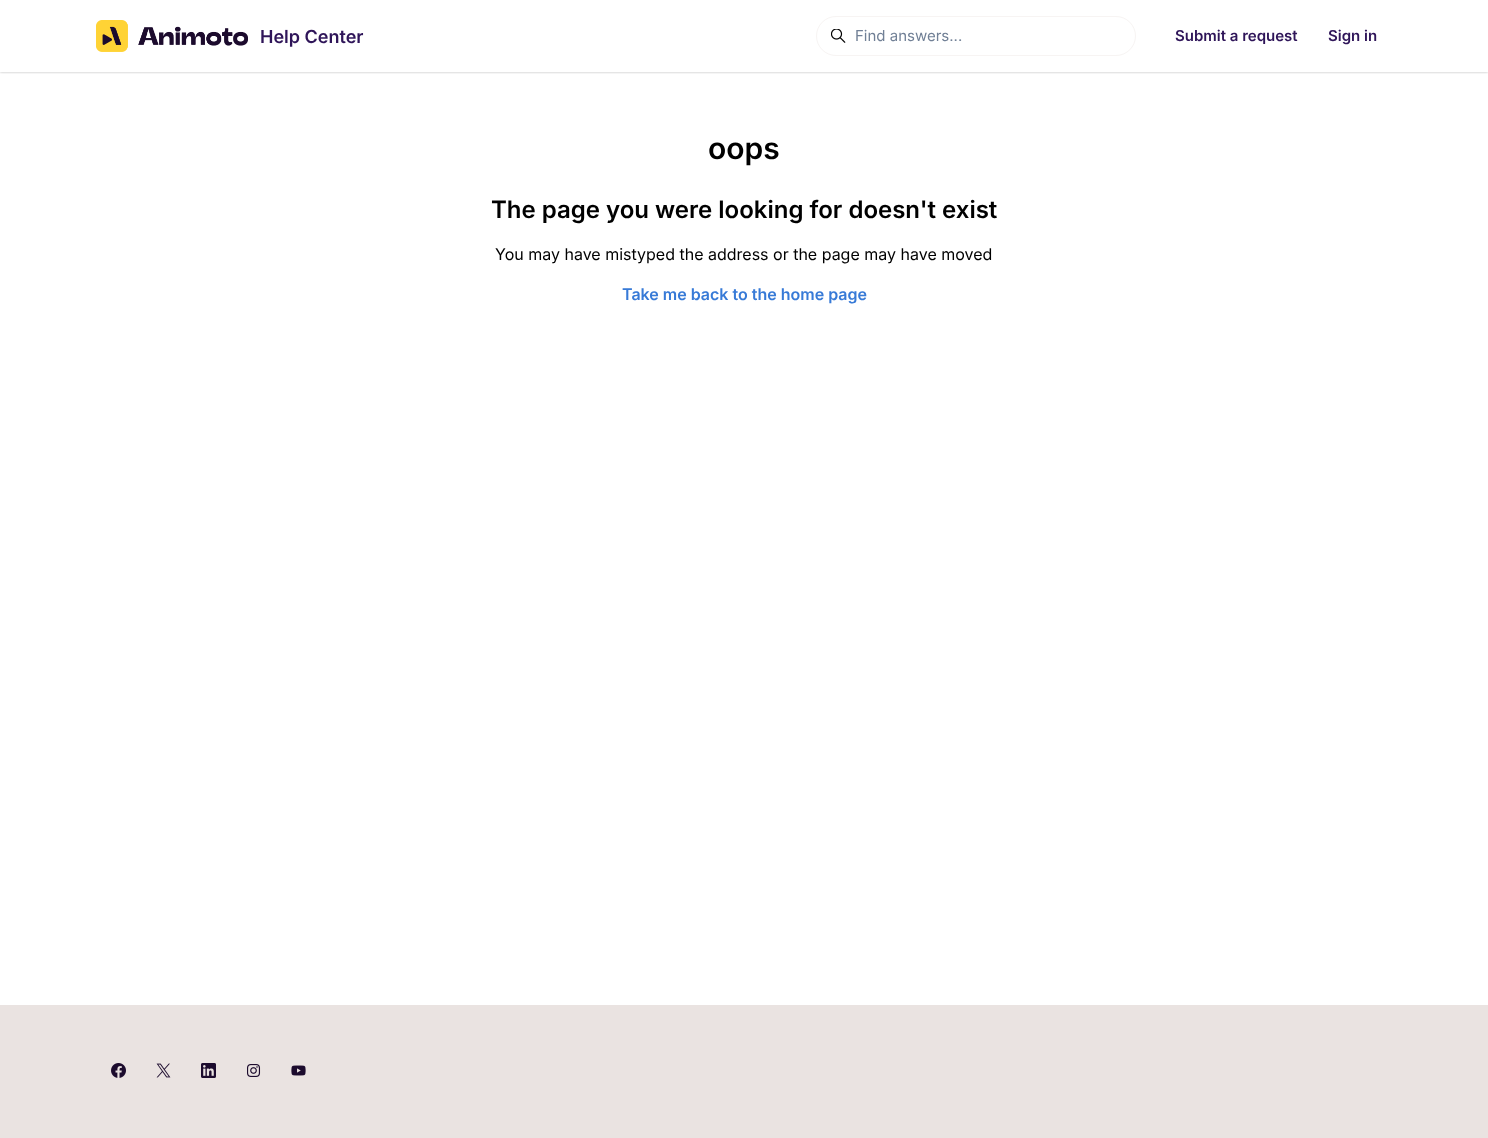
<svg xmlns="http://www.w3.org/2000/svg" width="1488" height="1138">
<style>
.a{font:600 18px Inter;fill:#2f1559}
.b{font:15px Inter;fill:#718096}
.c{font:600 15px Inter;fill:#2f1559}
.d{font:600 30px Inter;fill:#000}
.e{font:600 24px Inter;fill:#000}
.f{font:16px Inter;fill:#000}
.g{font:600 16px Inter;fill:#377ad7}
</style>
<defs>
<clipPath id="clip1"><path d="M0 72h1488v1H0z"/></clipPath>
<clipPath id="clip2"><path d="M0 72h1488v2H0z"/></clipPath>
</defs>
<rect width="100%" height="100%" fill="#fff"/>
<g clip-path="url(#clip1)">
<path fill="#0000000f" filter="blur(1px)" d="M0 1h1488v72H0z"/>
</g>
<g clip-path="url(#clip2)">
<path fill="#0000001a" filter="blur(1.5px)" d="M0 1h1488v72H0z"/>
</g>
<image href="1.png" x="96" y="20" width="152" height="32"/>
<rect fill="none" stroke="#f7f4f3" x="816.5" y="16.5" width="319" height="39" rx="19.5"/>
<image href="2.png" x="831" y="29" width="15" height="14"/>
<path fill="#eae3e1" d="M0 1005h1488v133H0z"/>
<image href="3.png" x="111" y="1063" width="15" height="15"/>
<image href="4.png" x="156" y="1063" width="15" height="15"/>
<image href="5.png" x="201" y="1063" width="15" height="15"/>
<image href="6.png" x="247" y="1064" width="14" height="13"/>
<image href="7.png" x="291" y="1065" width="15" height="11"/>
<text class="a" x="260" y="43">Help Center</text>
<text class="b" x="855" y="41">Find answers...</text>
<text class="c" x="1175" y="41">Submit a request</text>
<text class="c" x="1328" y="41">Sign in</text>
<text class="d" x="708" y="159">oops</text>
<text class="e" x="491" y="218">The page you were looking for doesn't exist</text>
<text class="f" x="495" y="260">You may have mistyped the address or the page may have moved</text>
<text class="g" x="622" y="300">Take me back to the home page</text>
</svg>
